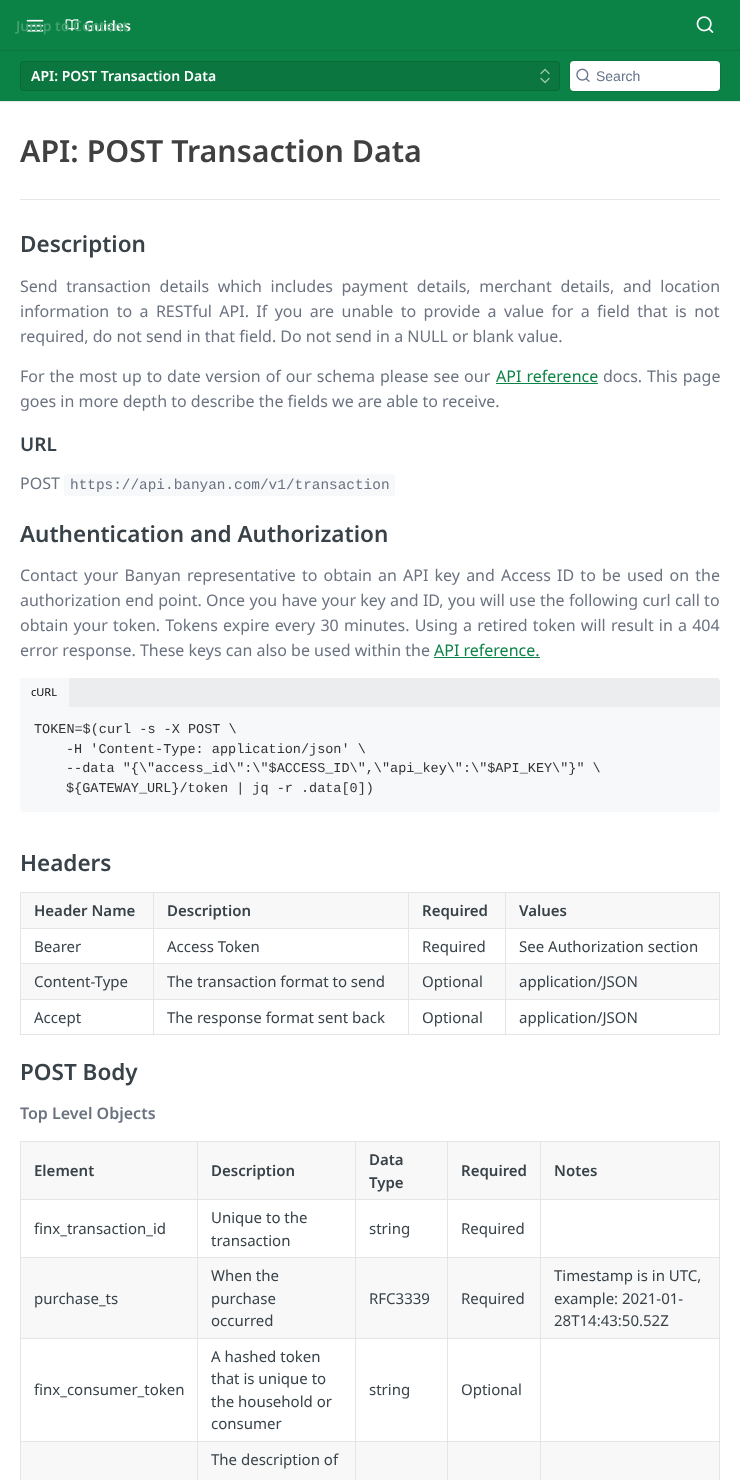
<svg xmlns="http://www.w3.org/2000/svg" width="740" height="1480">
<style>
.a{font:600 14px Noto Sans;fill:#fff}
.b{font:600 14px Noto Sans;fill:#439f70}
.c{font:14px Liberation Sans;fill:#637288}
.d{font:600 30.4px Noto Sans;fill:#404040}
.e{font:600 22.5px Noto Sans;fill:#384248}
.f{font:16px Noto Sans;fill:#6b7280}
.g{font:16px Noto Sans;fill:#0c8346}
.h{font:600 19px Noto Sans;fill:#384248}
.i{font:14.4px Liberation Mono;fill:#6b7280}
.j{font:11px Noto Sans;fill:#000}
.k{font:13.5px Liberation Mono;fill:#333}
.l{font:600 15px Noto Sans;fill:#384248}
.m{font:15px Noto Sans;fill:#384248}
.n{font:600 16px Noto Sans;fill:#6b7280}
</style>
<rect width="100%" height="100%" fill="#fff"/>
<path fill="#e6e6e6" d="M0 101h740v1H0z"/>
<path fill="#0c8346" d="M0 0h740v101H0z"/>
<path fill="#0b763f" d="M0 50h740v1H0z"/>
<image href="1.png" x="696" y="16" width="18" height="17"/>
<image href="2.png" x="26" y="19" width="18" height="13"/>
<image href="3.png" x="65" y="19" width="14" height="12"/>
<rect fill="#0b763f" x="20" y="61" width="540" height="30" rx="4"/>
<rect fill="none" stroke="#0000001a" x="20.5" y="61.5" width="539" height="29" rx="3.5"/>
<path fill="none" stroke="#9dc8b2" stroke-width="1.3" stroke-linecap="round" stroke-linejoin="round" d="M541 78.5l4 4l4-4m0-5l-4-4l-4 4"/>
<rect fill="none" stroke="#0b763f" x="569.5" y="60.5" width="151" height="31" rx="4.5"/>
<rect fill="#fff" x="570" y="61" width="150" height="30" rx="4"/>
<image href="4.png" x="576" y="68" width="14" height="14"/>
<path fill="#e6e6e6" d="M20 199h700v1H20z"/>
<path fill="#0c8346" d="M496 383h102v1H496z"/>
<rect fill="#f6f8fa" x="64" y="474" width="331" height="22" rx="3"/>
<path fill="#0c8346" d="M434 657h106v1H434z"/>
<path fill="#ebedef" d="M23 678h694c1.5 0 3 1.5 3 3v26h-700v-26c0-1.5 1.5-3 3-3z"/>
<path fill="#f6f8fa" d="M23 678h46v29h-49v-26c0-1.5 1.5-3 3-3z"/>
<path fill="#f6f8fa" d="M20 707h700v102c0 1.5-1.5 3-3 3h-694c-1.5 0-3-1.5-3-3z"/>
<path fill="#e5e5e5" d="M20 892h700v1H20z"/>
<path fill="#e5e5e5" d="M719 892h1v143H719z"/>
<path fill="#e5e5e5" d="M20 1034h700v1H20z"/>
<path fill="#e5e5e5" d="M20 892h1v143H20z"/>
<path fill="#f8f8f8" d="M21 893h698v35H21z"/>
<path fill="#e5e5e5" d="M505 928h215v1H505z"/>
<path fill="#e5e5e5" d="M20 963h700v1H20z"/>
<path fill="#f8f8f8" d="M21 964h698v35H21z"/>
<path fill="#e5e5e5" d="M20 999h700v1H20z"/>
<path fill="#e5e5e5" d="M505 963h1v72H505z"/>
<path fill="#e5e5e5" d="M505 928h1v36H505z"/>
<path fill="#e5e5e5" d="M408 928h98v1H408z"/>
<path fill="#e5e5e5" d="M408 963h1v72H408z"/>
<path fill="#e5e5e5" d="M408 928h1v36H408z"/>
<path fill="#e5e5e5" d="M153 928h256v1H153z"/>
<path fill="#e5e5e5" d="M153 963h1v72H153z"/>
<path fill="#e5e5e5" d="M153 928h1v36H153z"/>
<path fill="#e5e5e5" d="M20 928h134v1H20z"/>
<path fill="#e5e5e5" d="M153 892h1v37H153z"/>
<path fill="#e5e5e5" d="M408 892h1v37H408z"/>
<path fill="#e5e5e5" d="M505 892h1v37H505z"/>
<path fill="#e5e5e5" d="M20 1141h700v1H20z"/>
<path fill="#e5e5e5" d="M719 1141h1v339H719z"/>
<path fill="#e5e5e5" d="M20 1141h1v339H20z"/>
<path fill="#f8f8f8" d="M21 1142h698v57H21z"/>
<path fill="#e5e5e5" d="M540 1199h180v1H540z"/>
<path fill="#e5e5e5" d="M20 1257h700v1H20z"/>
<path fill="#f8f8f8" d="M21 1258h698v80H21z"/>
<path fill="#e5e5e5" d="M20 1338h700v1H20z"/>
<path fill="#f8f8f8" d="M21 1442h698v38H21z"/>
<path fill="#e5e5e5" d="M20 1441h700v1H20z"/>
<path fill="#e5e5e5" d="M540 1257h1v223H540z"/>
<path fill="#e5e5e5" d="M540 1199h1v59H540z"/>
<path fill="#e5e5e5" d="M447 1199h94v1H447z"/>
<path fill="#e5e5e5" d="M447 1257h1v223H447z"/>
<path fill="#e5e5e5" d="M447 1199h1v59H447z"/>
<path fill="#e5e5e5" d="M355 1199h93v1H355z"/>
<path fill="#e5e5e5" d="M355 1257h1v223H355z"/>
<path fill="#e5e5e5" d="M355 1199h1v59H355z"/>
<path fill="#e5e5e5" d="M197 1199h159v1H197z"/>
<path fill="#e5e5e5" d="M197 1257h1v223H197z"/>
<path fill="#e5e5e5" d="M197 1199h1v59H197z"/>
<path fill="#e5e5e5" d="M20 1199h178v1H20z"/>
<path fill="#e5e5e5" d="M197 1141h1v59H197z"/>
<path fill="#e5e5e5" d="M355 1141h1v59H355z"/>
<path fill="#e5e5e5" d="M447 1141h1v59H447z"/>
<path fill="#e5e5e5" d="M540 1141h1v59H540z"/>
<text class="a" x="84" y="31">Guides</text>
<text class="b" x="16" y="31">Jump to Content</text>
<text class="a" x="31" y="81">API: POST Transaction Data</text>
<text class="c" x="596" y="81">Search</text>
<text class="d" x="20" y="162">API: POST Transaction Data</text>
<text class="e" x="20" y="252">Description</text>
<text class="f" x="20" y="292" word-spacing="4.5">Send transaction details which includes payment details, merchant details, and location</text>
<text class="f" x="20" y="317" word-spacing="3.25">information to a RESTful API. If you are unable to provide a value for a field that is not</text>
<text class="f" x="20" y="342">required, do not send in that field. Do not send in a NULL or blank value.</text>
<text class="f" x="20" y="382" word-spacing="0.75">For the most up to date version of our schema please see our</text>
<text class="g" x="496" y="382" word-spacing="1">API reference</text>
<text class="f" x="603" y="382">docs.</text>
<text class="f" x="647" y="382" word-spacing="1">This page</text>
<text class="f" x="20" y="407">goes in more depth to describe the fields we are able to receive.</text>
<text class="h" x="20" y="451">URL</text>
<text class="f" x="20" y="489">POST</text>
<text class="i" x="70" y="489">https://api.banyan.com/v1/transaction</text>
<text class="e" x="20" y="542">Authentication and Authorization</text>
<text class="f" x="20" y="581" word-spacing="2">Contact your Banyan representative to obtain an API key and Access ID to be used on the</text>
<text class="f" x="20" y="606" word-spacing="0.1">authorization end point. Once you have your key and ID, you will use the following curl call to</text>
<text class="f" x="20" y="631" word-spacing="1">obtain your token. Tokens expire every 30 minutes. Using a retired token will result in a 404</text>
<text class="f" x="20" y="656">error response. These keys can also be used within the</text>
<text class="g" x="434" y="656">API reference.</text>
<text class="j" x="31" y="696">cURL</text>
<text class="k" x="34" y="733">TOKEN=$(curl -s -X POST \</text>
<text class="k" x="66" y="753">-H 'Content-Type: application/json' \</text>
<text class="k" x="66" y="772">--data "{\"access_id\":\"$ACCESS_ID\",\"api_key\":\"$API_KEY\"}" \</text>
<text class="k" x="66" y="792">${GATEWAY_URL}/token | jq -r .data[0])</text>
<text class="e" x="20" y="871">Headers</text>
<text class="l" x="34" y="916">Header Name</text>
<text class="l" x="167" y="916">Description</text>
<text class="l" x="422" y="916">Required</text>
<text class="l" x="519" y="916">Values</text>
<text class="m" x="34" y="952">Bearer</text>
<text class="m" x="167" y="952">Access Token</text>
<text class="m" x="422" y="952">Required</text>
<text class="m" x="519" y="952">See Authorization section</text>
<text class="m" x="34" y="987">Content-Type</text>
<text class="m" x="167" y="987">The transaction format to send</text>
<text class="m" x="422" y="987">Optional</text>
<text class="m" x="519" y="987">application/JSON</text>
<text class="m" x="34" y="1023">Accept</text>
<text class="m" x="167" y="1023">The response format sent back</text>
<text class="m" x="422" y="1023">Optional</text>
<text class="m" x="519" y="1023">application/JSON</text>
<text class="e" x="20" y="1080">POST Body</text>
<text class="n" x="20" y="1119">Top Level Objects</text>
<text class="l" x="34" y="1176">Element</text>
<text class="l" x="211" y="1176">Description</text>
<text class="l" x="369" y="1165">Data</text>
<text class="l" x="369" y="1188">Type</text>
<text class="l" x="461" y="1176">Required</text>
<text class="l" x="554" y="1176">Notes</text>
<text class="m" x="34" y="1234">finx_transaction_id</text>
<text class="m" x="211" y="1223">Unique to the</text>
<text class="m" x="211" y="1246">transaction</text>
<text class="m" x="369" y="1234">string</text>
<text class="m" x="461" y="1234">Required</text>
<text class="m" x="34" y="1304">purchase_ts</text>
<text class="m" x="211" y="1281">When the</text>
<text class="m" x="211" y="1304">purchase</text>
<text class="m" x="211" y="1326">occurred</text>
<text class="m" x="369" y="1304">RFC3339</text>
<text class="m" x="461" y="1304">Required</text>
<text class="m" x="554" y="1281">Timestamp is in UTC,</text>
<text class="m" x="554" y="1304">example: 2021-01-</text>
<text class="m" x="554" y="1326">28T14:43:50.52Z</text>
<text class="m" x="34" y="1395">finx_consumer_token</text>
<text class="m" x="211" y="1362">A hashed token</text>
<text class="m" x="211" y="1384">that is unique to</text>
<text class="m" x="211" y="1407">the household or</text>
<text class="m" x="211" y="1429">consumer</text>
<text class="m" x="369" y="1395">string</text>
<text class="m" x="461" y="1395">Optional</text>
<text class="m" x="211" y="1465">The description of</text>
</svg>
